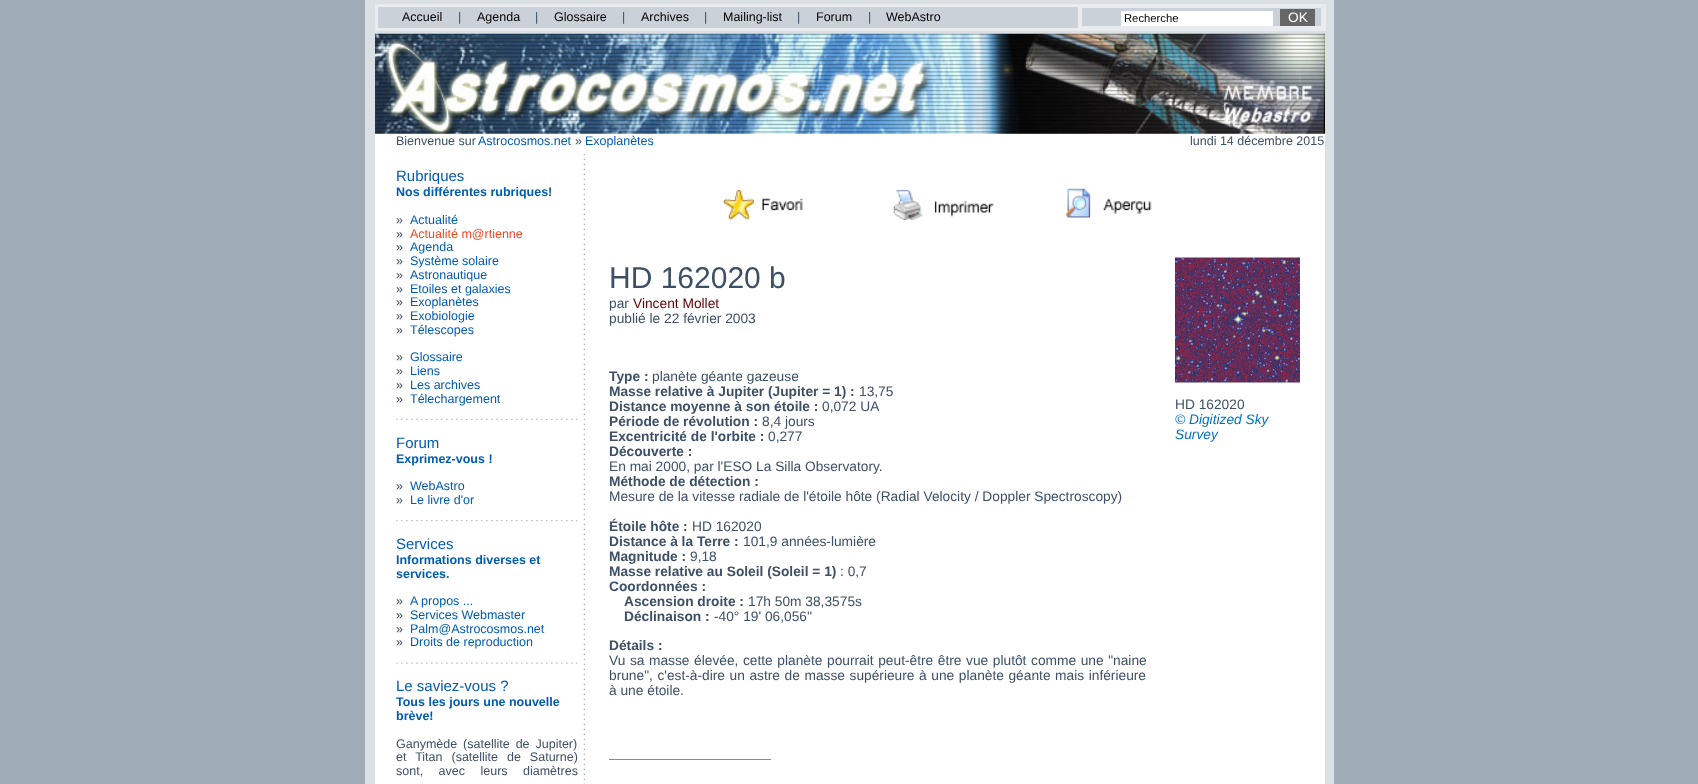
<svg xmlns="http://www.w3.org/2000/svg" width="1698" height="784">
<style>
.a{font:12.5px Liberation Sans;fill:#000}
.b{font:12.5px Liberation Sans;fill:#3d5066}
.c{font:11.25px Liberation Sans;fill:#000}
.d{font:13.75px Liberation Sans;fill:#fff}
.e{font:12.5px Liberation Sans;fill:#005cb1}
.f{font:15px Liberation Sans;fill:#005cb1}
.g{font:bold 12.5px Liberation Sans;fill:#005cb1}
.h{font:12.5px Liberation Sans;fill:#ef4a21}
.i{font:30px Liberation Sans;fill:#3d5066}
.j{font:13.75px Liberation Sans;fill:#3d5066}
.k{font:13.75px Liberation Sans;fill:#600}
.l{font:bold 13.75px Liberation Sans;fill:#3d5066}
.m{font:italic 13.75px Liberation Sans;fill:#0072c2}
</style>
<rect width="100%" height="100%" fill="#a1acb9"/>
<path fill="#dbe0e5" d="M365 0h969v784H365z"/>
<path fill="#cbd1d9" d="M378 7h943v21H378z"/>
<path fill="none" stroke="#e8ebef" stroke-width="3" d="M1080.5 6.5h242v21H1080.5z"/>
<path fill="#e8ebef" d="M375 4h950v3H375z"/>
<path fill="#e8ebef" d="M1323 4h3v26H1323z"/>
<path fill="#e8ebef" d="M375 28h950v3H375z"/>
<path fill="#e8ebef" d="M375 4h3v26H375z"/>
<path fill="#e8ebef" d="M1078 4h1v26H1078z"/>
<path fill="#fff" d="M1121 11h152v15H1121z"/>
<path fill="#666" d="M1280 9h35v17H1280z"/>
<image href="1.png" x="375" y="33" width="950" height="101"/>
<path fill="#fff" d="M375 134h950v20H375z"/>
<path fill="#fff" d="M375 154h209v630H375z"/>
<image href="2.png" x="583" y="153" width="2" height="631"/>
<path fill="#fff" d="M585 154h740v630H585z"/>
<image href="3.png" x="396" y="418" width="182" height="2"/>
<image href="4.png" x="396" y="520" width="182" height="2"/>
<image href="5.png" x="396" y="662" width="182" height="2"/>
<image href="6.png" x="723" y="189" width="80" height="31"/>
<image href="7.png" x="893" y="189" width="101" height="31"/>
<image href="8.png" x="1066" y="188" width="86" height="30"/>
<path fill="#8c8c8c" d="M609 759h162v1H609z"/>
<image href="9.png" x="1175" y="257" width="125" height="126"/>
<text class="a" x="402" y="21">Accueil</text>
<text class="b" x="458" y="21">|</text>
<text class="a" x="477" y="21">Agenda</text>
<text class="b" x="535" y="21">|</text>
<text class="a" x="554" y="21">Glossaire</text>
<text class="b" x="622" y="21">|</text>
<text class="a" x="641" y="21">Archives</text>
<text class="b" x="704" y="21">|</text>
<text class="a" x="723" y="21">Mailing-list</text>
<text class="b" x="797" y="21">|</text>
<text class="a" x="816" y="21">Forum</text>
<text class="b" x="868" y="21">|</text>
<text class="a" x="886" y="21">WebAstro</text>
<text class="c" x="1124" y="22">Recherche</text>
<text class="d" x="1288" y="22">OK</text>
<text class="b" x="396" y="145">Bienvenue sur</text>
<text class="e" x="478" y="145">Astrocosmos.net</text>
<text class="b" x="575" y="145">»</text>
<text class="e" x="585" y="145">Exoplanètes</text>
<text class="b" x="1190" y="145">lundi 14 décembre 2015</text>
<text class="f" x="396" y="181">Rubriques</text>
<text class="g" x="396" y="196">Nos différentes rubriques!</text>
<text class="b" x="396" y="224">»</text>
<text class="e" x="410" y="224">Actualité</text>
<text class="b" x="396" y="238">»</text>
<text class="h" x="410" y="238">Actualité m@rtienne</text>
<text class="b" x="396" y="251">»</text>
<text class="e" x="410" y="251">Agenda</text>
<text class="b" x="396" y="265">»</text>
<text class="e" x="410" y="265">Système solaire</text>
<text class="b" x="396" y="279">»</text>
<text class="e" x="410" y="279">Astronautique</text>
<text class="b" x="396" y="293">»</text>
<text class="e" x="410" y="293">Etoiles et galaxies</text>
<text class="b" x="396" y="306">»</text>
<text class="e" x="410" y="306">Exoplanètes</text>
<text class="b" x="396" y="320">»</text>
<text class="e" x="410" y="320">Exobiologie</text>
<text class="b" x="396" y="334">»</text>
<text class="e" x="410" y="334">Télescopes</text>
<text class="b" x="396" y="361">»</text>
<text class="e" x="410" y="361">Glossaire</text>
<text class="b" x="396" y="375">»</text>
<text class="e" x="410" y="375">Liens</text>
<text class="b" x="396" y="389">»</text>
<text class="e" x="410" y="389">Les archives</text>
<text class="b" x="396" y="403">»</text>
<text class="e" x="410" y="403">Télechargement</text>
<text class="f" x="396" y="448">Forum</text>
<text class="g" x="396" y="463">Exprimez-vous !</text>
<text class="b" x="396" y="490">»</text>
<text class="e" x="410" y="490">WebAstro</text>
<text class="b" x="396" y="504">»</text>
<text class="e" x="410" y="504">Le livre d'or</text>
<text class="f" x="396" y="549">Services</text>
<text class="g" x="396" y="564">Informations diverses et</text>
<text class="g" x="396" y="578">services.</text>
<text class="b" x="396" y="605">»</text>
<text class="e" x="410" y="605">A propos ...</text>
<text class="b" x="396" y="619">»</text>
<text class="e" x="410" y="619">Services Webmaster</text>
<text class="b" x="396" y="633">»</text>
<text class="e" x="410" y="633">Palm@Astrocosmos.net</text>
<text class="b" x="396" y="646">»</text>
<text class="e" x="410" y="646">Droits de reproduction</text>
<text class="f" x="396" y="691">Le saviez-vous ?</text>
<text class="g" x="396" y="706">Tous les jours une nouvelle</text>
<text class="g" x="396" y="720">brève!</text>
<text class="b" x="396" y="748" word-spacing="2.5">Ganymède (satellite de Jupiter)</text>
<text class="b" x="396" y="761" word-spacing="5.5">et Titan (satellite de Saturne)</text>
<text class="b" x="396" y="775" word-spacing="12">sont, avec leurs diamètres</text>
<text class="i" x="609" y="288">HD 162020 b</text>
<text class="j" x="609" y="308">par</text>
<text class="k" x="633" y="308">Vincent Mollet</text>
<text class="j" x="609" y="323">publié le 22 février 2003</text>
<text class="l" x="609" y="381">Type :</text>
<text class="j" x="652" y="381">planète géante gazeuse</text>
<text class="l" x="609" y="396">Masse relative à Jupiter (Jupiter = 1) :</text>
<text class="j" x="859" y="396">13,75</text>
<text class="l" x="609" y="411">Distance moyenne à son étoile :</text>
<text class="j" x="822" y="411">0,072 UA</text>
<text class="l" x="609" y="426">Période de révolution :</text>
<text class="j" x="762" y="426">8,4 jours</text>
<text class="l" x="609" y="441">Excentricité de l'orbite :</text>
<text class="j" x="768" y="441">0,277</text>
<text class="l" x="609" y="456">Découverte :</text>
<text class="j" x="609" y="471">En mai 2000, par l'ESO La Silla Observatory.</text>
<text class="l" x="609" y="486">Méthode de détection :</text>
<text class="j" x="609" y="501">Mesure de la vitesse radiale de l'étoile hôte (Radial Velocity / Doppler Spectroscopy)</text>
<text class="l" x="609" y="531">Étoile hôte :</text>
<text class="j" x="692" y="531">HD 162020</text>
<text class="l" x="609" y="546">Distance à la Terre :</text>
<text class="j" x="743" y="546">101,9 années-lumière</text>
<text class="l" x="609" y="561">Magnitude :</text>
<text class="j" x="690" y="561">9,18</text>
<text class="l" x="609" y="576">Masse relative au Soleil (Soleil = 1)</text>
<text class="j" x="840" y="576">: 0,7</text>
<text class="l" x="609" y="591">Coordonnées :</text>
<text class="l" x="624" y="606">Ascension droite :</text>
<text class="j" x="748" y="606">17h 50m 38,3575s</text>
<text class="l" x="624" y="621">Déclinaison :</text>
<text class="j" x="714" y="621">-40° 19' 06,056''</text>
<text class="l" x="609" y="650">Détails :</text>
<text class="j" x="609" y="665" word-spacing="0.75">Vu sa masse élevée, cette planète pourrait peut-être être vue plutôt comme une "naine</text>
<text class="j" x="609" y="680" word-spacing="0.75">brune", c'est-à-dire un astre de masse supérieure à une planète géante mais inférieure</text>
<text class="j" x="609" y="695">à une étoile.</text>
<text class="j" x="1175" y="409">HD 162020</text>
<text class="m" x="1175" y="424">© Digitized Sky</text>
<text class="m" x="1175" y="439">Survey</text>
</svg>
